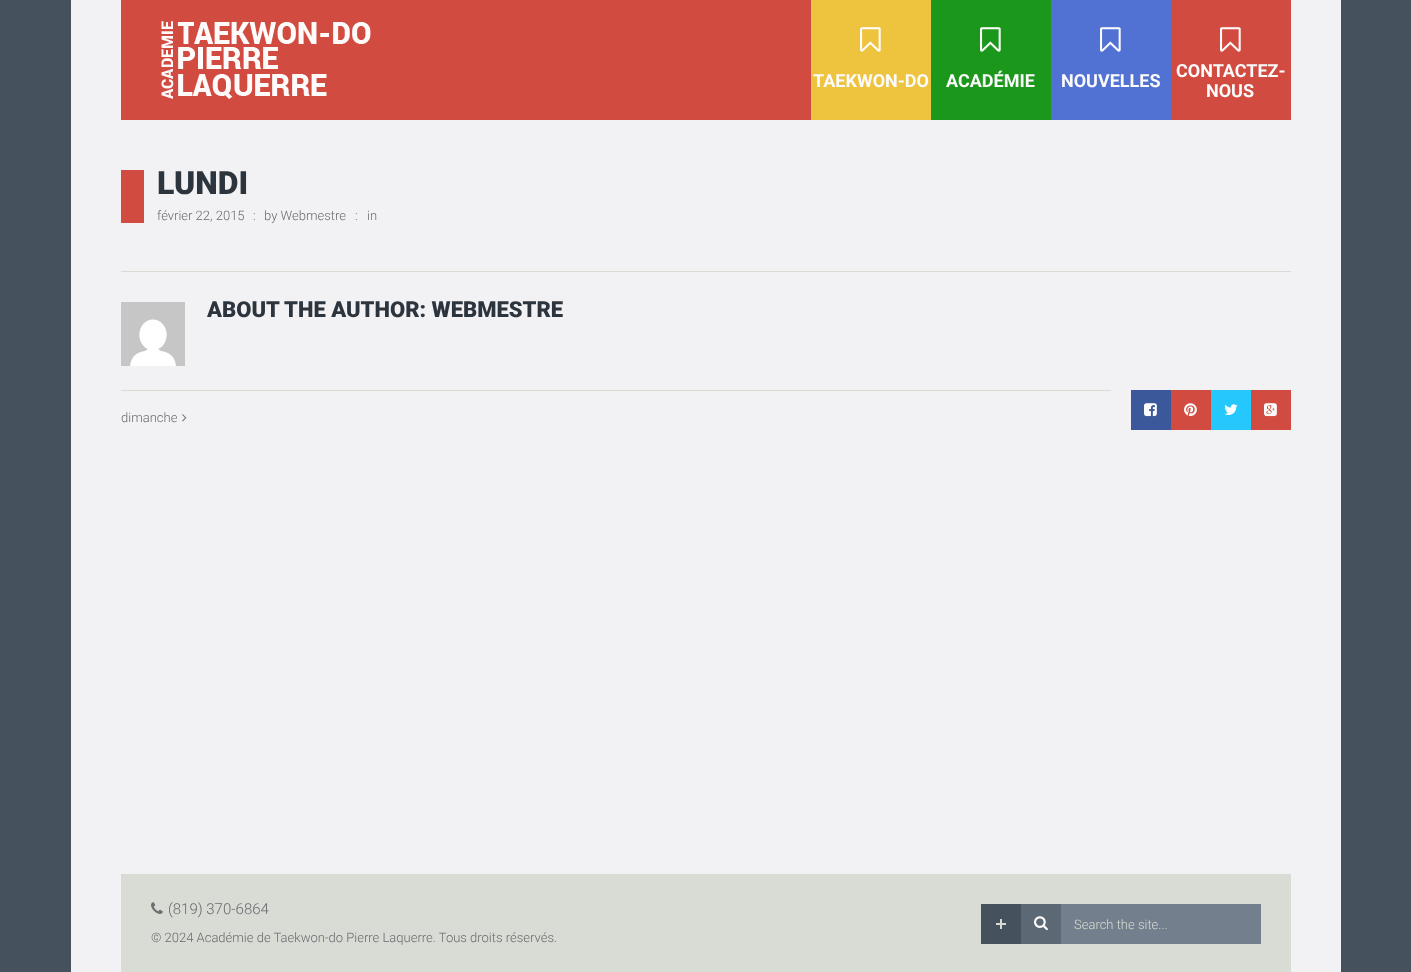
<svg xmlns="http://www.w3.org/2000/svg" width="1411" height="972">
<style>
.a{font:bold 18px Roboto;fill:#fbfbfc}
.b{font:900 32px Roboto;fill:#2c343d}
.c{font:300 13px Roboto;fill:#686a6e}
.d{font:900 22px Roboto;fill:#2c343d}
.e{font:300 15px Roboto;fill:#686a6e}
.f{font:300 13px Roboto;fill:#d8dcd5}
</style>
<rect width="100%" height="100%" fill="#46515e"/>
<path fill="#f2f2f4" d="M71 0h1270v972H71z"/>
<path fill="#d14b40" d="M121 0h1170v120H121z"/>
<image href="1.png" x="161" y="21" width="210" height="78"/>
<path fill="#eec33e" d="M811 0h120v120H811z"/>
<image href="2.png" x="860" y="27" width="21" height="25"/>
<path fill="#1b971b" d="M931 0h120v120H931z"/>
<image href="3.png" x="980" y="27" width="21" height="25"/>
<path fill="#5172d3" d="M1051 0h120v120H1051z"/>
<image href="4.png" x="1100" y="27" width="21" height="25"/>
<image href="5.png" x="1220" y="27" width="21" height="25"/>
<path fill="#d14b40" d="M121 170h23v53H121z"/>
<path fill="#d8dcd5" d="M121 271h1170v1H121z"/>
<image href="6.png" x="121" y="302" width="64" height="64"/>
<path fill="#d8dcd5" d="M121 390h990v1H121z"/>
<image href="7.png" x="182" y="414" width="5" height="8"/>
<path fill="#3a589a" d="M1131 390h40v40H1131z"/>
<image href="8.png" x="1144" y="403" width="13" height="14"/>
<path fill="#d14b40" d="M1171 390h40v40H1171z"/>
<image href="9.png" x="1184" y="403" width="13" height="14"/>
<path fill="#24c8fc" d="M1211 390h40v40H1211z"/>
<image href="10.png" x="1224" y="404" width="14" height="11"/>
<path fill="#d14b40" d="M1251 390h40v40H1251z"/>
<image href="11.png" x="1264" y="403" width="13" height="14"/>
<path fill="#d8dcd5" d="M121 874h1170v98H121z"/>
<image href="12.png" x="151" y="902" width="12" height="12"/>
<path fill="#46515e" d="M981 904h40v40H981z"/>
<path fill="#d8dcd5" d="M996 923h10v2H996z"/>
<path fill="#d8dcd5" d="M1000 919h2v10H1000z"/>
<path fill="#747f8d" d="M1061 904h200v40H1061z"/>
<path fill="#5d6875" d="M1021 904h40v40H1021z"/>
<image href="13.png" x="1034" y="916" width="14" height="15"/>
<text class="a" x="813" y="87">TAEKWON-DO</text>
<text class="a" x="946" y="87">ACADÉMIE</text>
<text class="a" x="1061" y="87">NOUVELLES</text>
<text class="a" x="1176" y="77">CONTACTEZ-</text>
<text class="a" x="1206" y="97">NOUS</text>
<text class="b" x="157" y="194">LUNDI</text>
<text class="c" x="157" y="220">février 22, 2015</text>
<text class="c" x="253" y="220">:</text>
<text class="c" x="264" y="220">by Webmestre</text>
<text class="c" x="355" y="220">:</text>
<text class="c" x="367" y="220">in</text>
<text class="d" x="207" y="317">ABOUT THE AUTHOR: WEBMESTRE</text>
<text class="c" x="121" y="422">dimanche</text>
<text class="e" x="168" y="914">(819) 370-6864</text>
<text class="c" x="151" y="942">© 2024 Académie de Taekwon-do Pierre Laquerre. Tous droits réservés.</text>
<text class="f" x="1074" y="929">Search the site...</text>
</svg>
